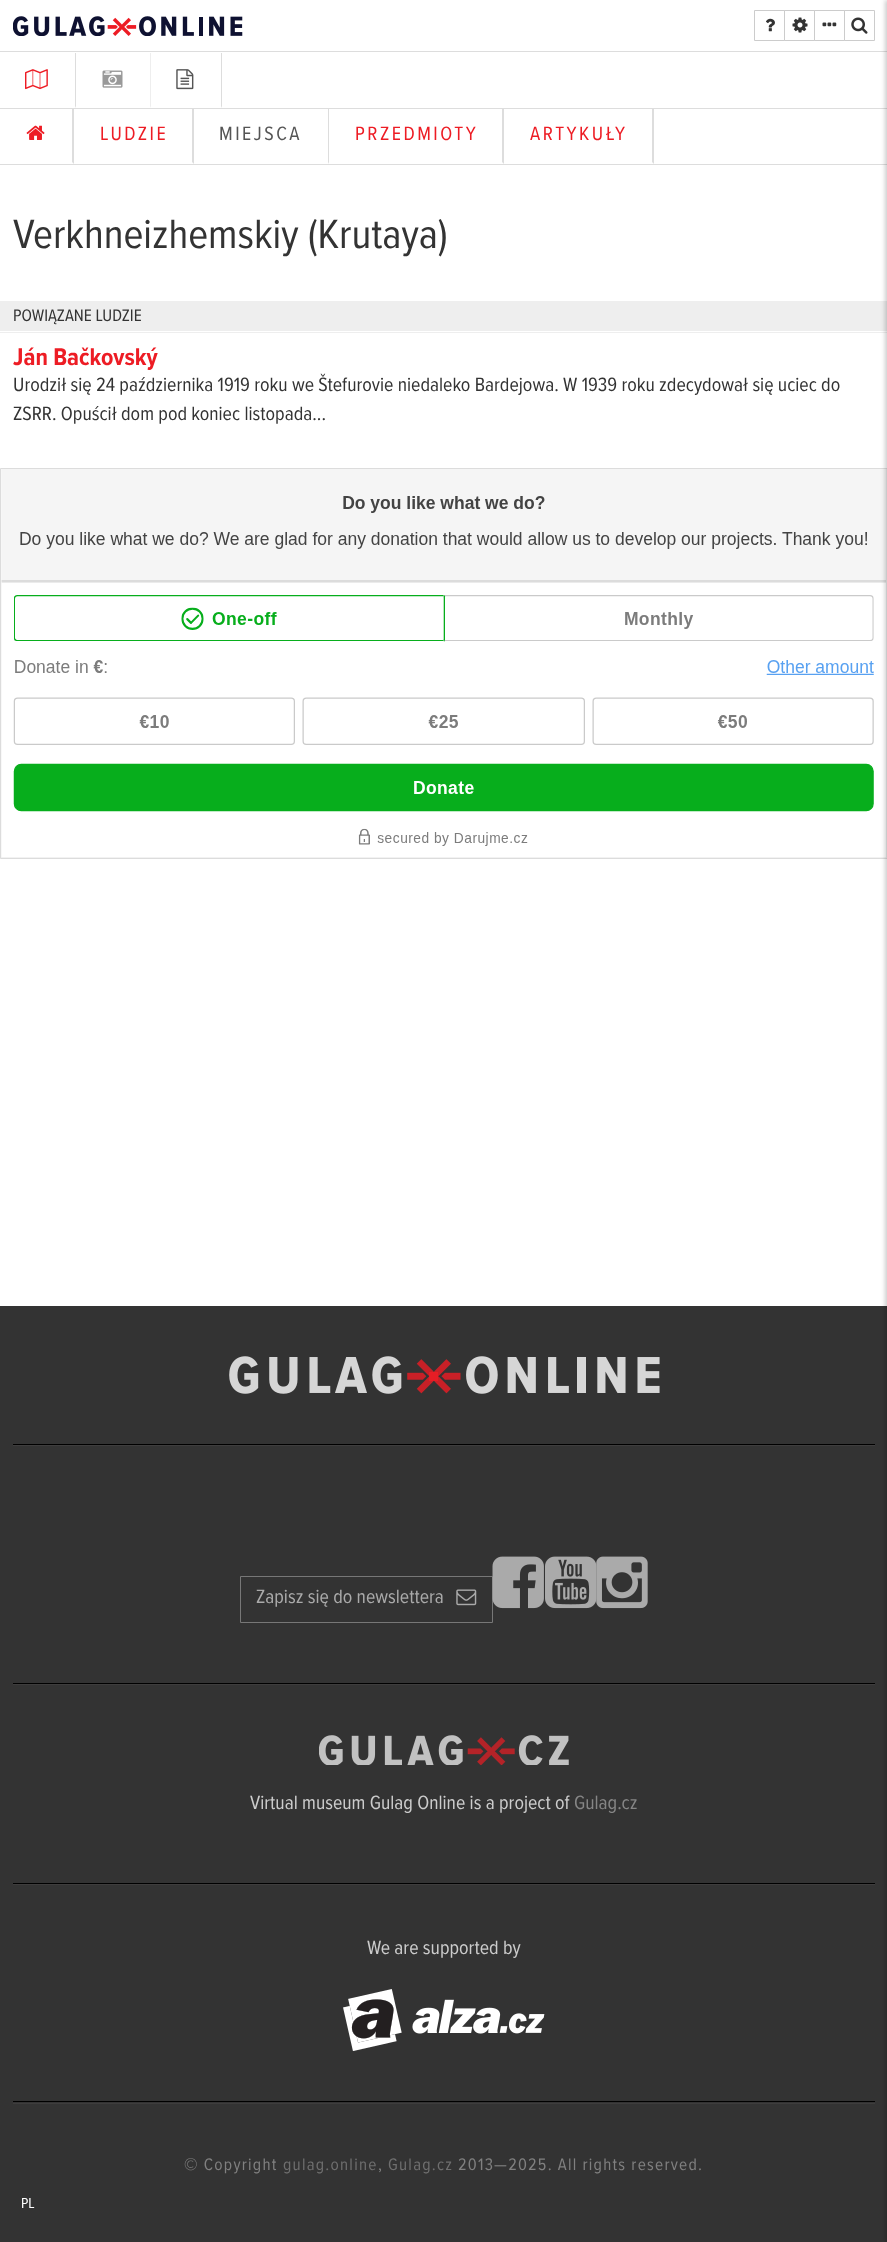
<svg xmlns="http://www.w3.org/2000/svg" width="887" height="2242">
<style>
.a{font:20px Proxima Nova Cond;letter-spacing:2.5px;fill:#ed1c24}
.b{font:20px Proxima Nova Cond;letter-spacing:2.5px;fill:#555}
.c{font:42.5px Proxima Nova Cond;fill:#333}
.d{font:17.4px Proxima Nova Cond;fill:#333}
.e{font:bold 25px Proxima Nova Cond;fill:#ed1c24}
.f{font:20px Proxima Nova Cond;fill:#333}
.g{font:20px Proxima Nova Cond;fill:#aaa}
.h{font:20px Proxima Nova Cond;fill:#ccc}
.i{font:20px Proxima Nova Cond;fill:#868686}
.j{font:17.4px Proxima Nova Cond;letter-spacing:1.25px;fill:#808080}
.k{font:17.4px Proxima Nova Cond;letter-spacing:1.25px;fill:#6f6f6f}
.l{font:15px Proxima Nova Cond;fill:#fff}
</style>
<rect width="100%" height="100%" fill="#fff"/>
<path fill="#ddd" d="M0 108h887v1H0z"/>
<path fill="#ddd" d="M76 52v56l-1-2v-54z"/>
<image href="1.png" x="25" y="69" width="23" height="21"/>
<path fill="#eee" d="M151 52v56l-1-2v-54z"/>
<image href="2.png" x="102" y="70" width="21" height="18"/>
<path fill="#ddd" d="M222 52v56l-1-2v-54z"/>
<image href="3.png" x="176" y="69" width="18" height="21"/>
<path fill="#ddd" d="M0 164h887v1H0z"/>
<path fill="#ddd" d="M74 109v55l-2-2v-53z"/>
<image href="4.png" x="26" y="125" width="19" height="15"/>
<path fill="#ddd" d="M194 109v55l-2-2v-53z"/>
<path fill="#ddd" d="M329 109v55l-1-2v-53z"/>
<path fill="#ddd" d="M504 109v55l-2-2v-53z"/>
<path fill="#ddd" d="M654 109v55l-2-2v-53z"/>
<path fill="#eee" d="M0 301h887v32H0z"/>
<path fill="#fff" d="M0 331h887v1H0z"/>
<path fill="#eee" stroke="#dcdcdc" d="M0.5 468.5h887v390H0.5z"/>
<image href="5.png" x="1" y="469" width="885" height="389"/>
<path fill="#333" d="M0 1306h887v936H0z"/>
<image href="6.png" x="229" y="1356" width="431" height="38"/>
<path fill="#000" d="M13 1444h862v1H13z"/>
<path fill="#3e3d3d" d="M13 1445h862v1H13z"/>
<path fill="none" stroke="#777" d="M240.5 1576.5h252v46H240.5z"/>
<image href="7.png" x="456" y="1589" width="21" height="17"/>
<image href="8.png" x="492" y="1556" width="52" height="53"/>
<image href="9.png" x="545" y="1556" width="52" height="53"/>
<image href="10.png" x="596" y="1556" width="52" height="53"/>
<path fill="#000" d="M13 1683h862v1H13z"/>
<path fill="#3e3d3d" d="M13 1684h862v1H13z"/>
<image href="11.png" x="319" y="1735" width="250" height="30"/>
<path fill="#000" d="M13 1883h862v1H13z"/>
<path fill="#3e3d3d" d="M13 1884h862v1H13z"/>
<image href="12.png" x="343" y="1989" width="202" height="62"/>
<path fill="#000" d="M13 2101h862v1H13z"/>
<path fill="#3e3d3d" d="M13 2103h862v1H13z"/>
<path fill="#fff" d="M75 52h147v1H75z"/>
<path fill="#ddd" d="M0 51h887v1H0z"/>
<image href="13.png" x="13" y="16" width="230" height="20"/>
<path fill="none" stroke="#ccc" d="M754.5 10.5h30v30H754.5z"/>
<image href="14.png" x="766" y="18" width="9" height="14"/>
<path fill="none" stroke="#ccc" d="M784.5 10.5h30v30H784.5z"/>
<image href="15.png" x="792" y="17" width="16" height="16"/>
<path fill="none" stroke="#ccc" d="M814.5 10.5h30v30H814.5z"/>
<image href="16.png" x="822" y="22" width="15" height="5"/>
<path fill="none" stroke="#ccc" d="M844.5 10.5h30v30H844.5z"/>
<image href="17.png" x="851" y="17" width="17" height="17"/>
<path fill="#00000033" filter="blur(2px)" d="M885 0h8v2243H885z"/>
<text class="a" x="100" y="140">LUDZIE</text>
<text class="b" x="219" y="140">MIEJSCA</text>
<text class="a" x="355" y="140">PRZEDMIOTY</text>
<text class="a" x="530" y="140">ARTYKUŁY</text>
<text class="c" x="13" y="248">Verkhneizhemskiy (Krutaya)</text>
<text class="d" x="13" y="321">POWIĄZANE LUDZIE</text>
<text class="e" x="13" y="365">Ján Bačkovský</text>
<text class="f" x="13" y="391">Urodził się 24 października 1919 roku we Štefurovie niedaleko Bardejowa. W 1939 roku zdecydował się uciec do</text>
<text class="f" x="13" y="420">ZSRR. Opuścił dom pod koniec listopada...</text>
<text class="g" x="256" y="1603">Zapisz się do newslettera</text>
<text class="h" x="250" y="1809">Virtual museum Gulag Online is a project of</text>
<text class="i" x="574" y="1809">Gulag.cz</text>
<text class="h" x="367" y="1954">We are supported by</text>
<text class="j" x="184" y="2170">© Copyright</text>
<text class="k" x="283" y="2170">gulag.online</text>
<text class="j" x="378" y="2170">,</text>
<text class="k" x="388" y="2170">Gulag.cz</text>
<text class="j" x="458" y="2170">2013—2025. All rights reserved.</text>
<text class="l" x="21" y="2208">PL</text>
</svg>
